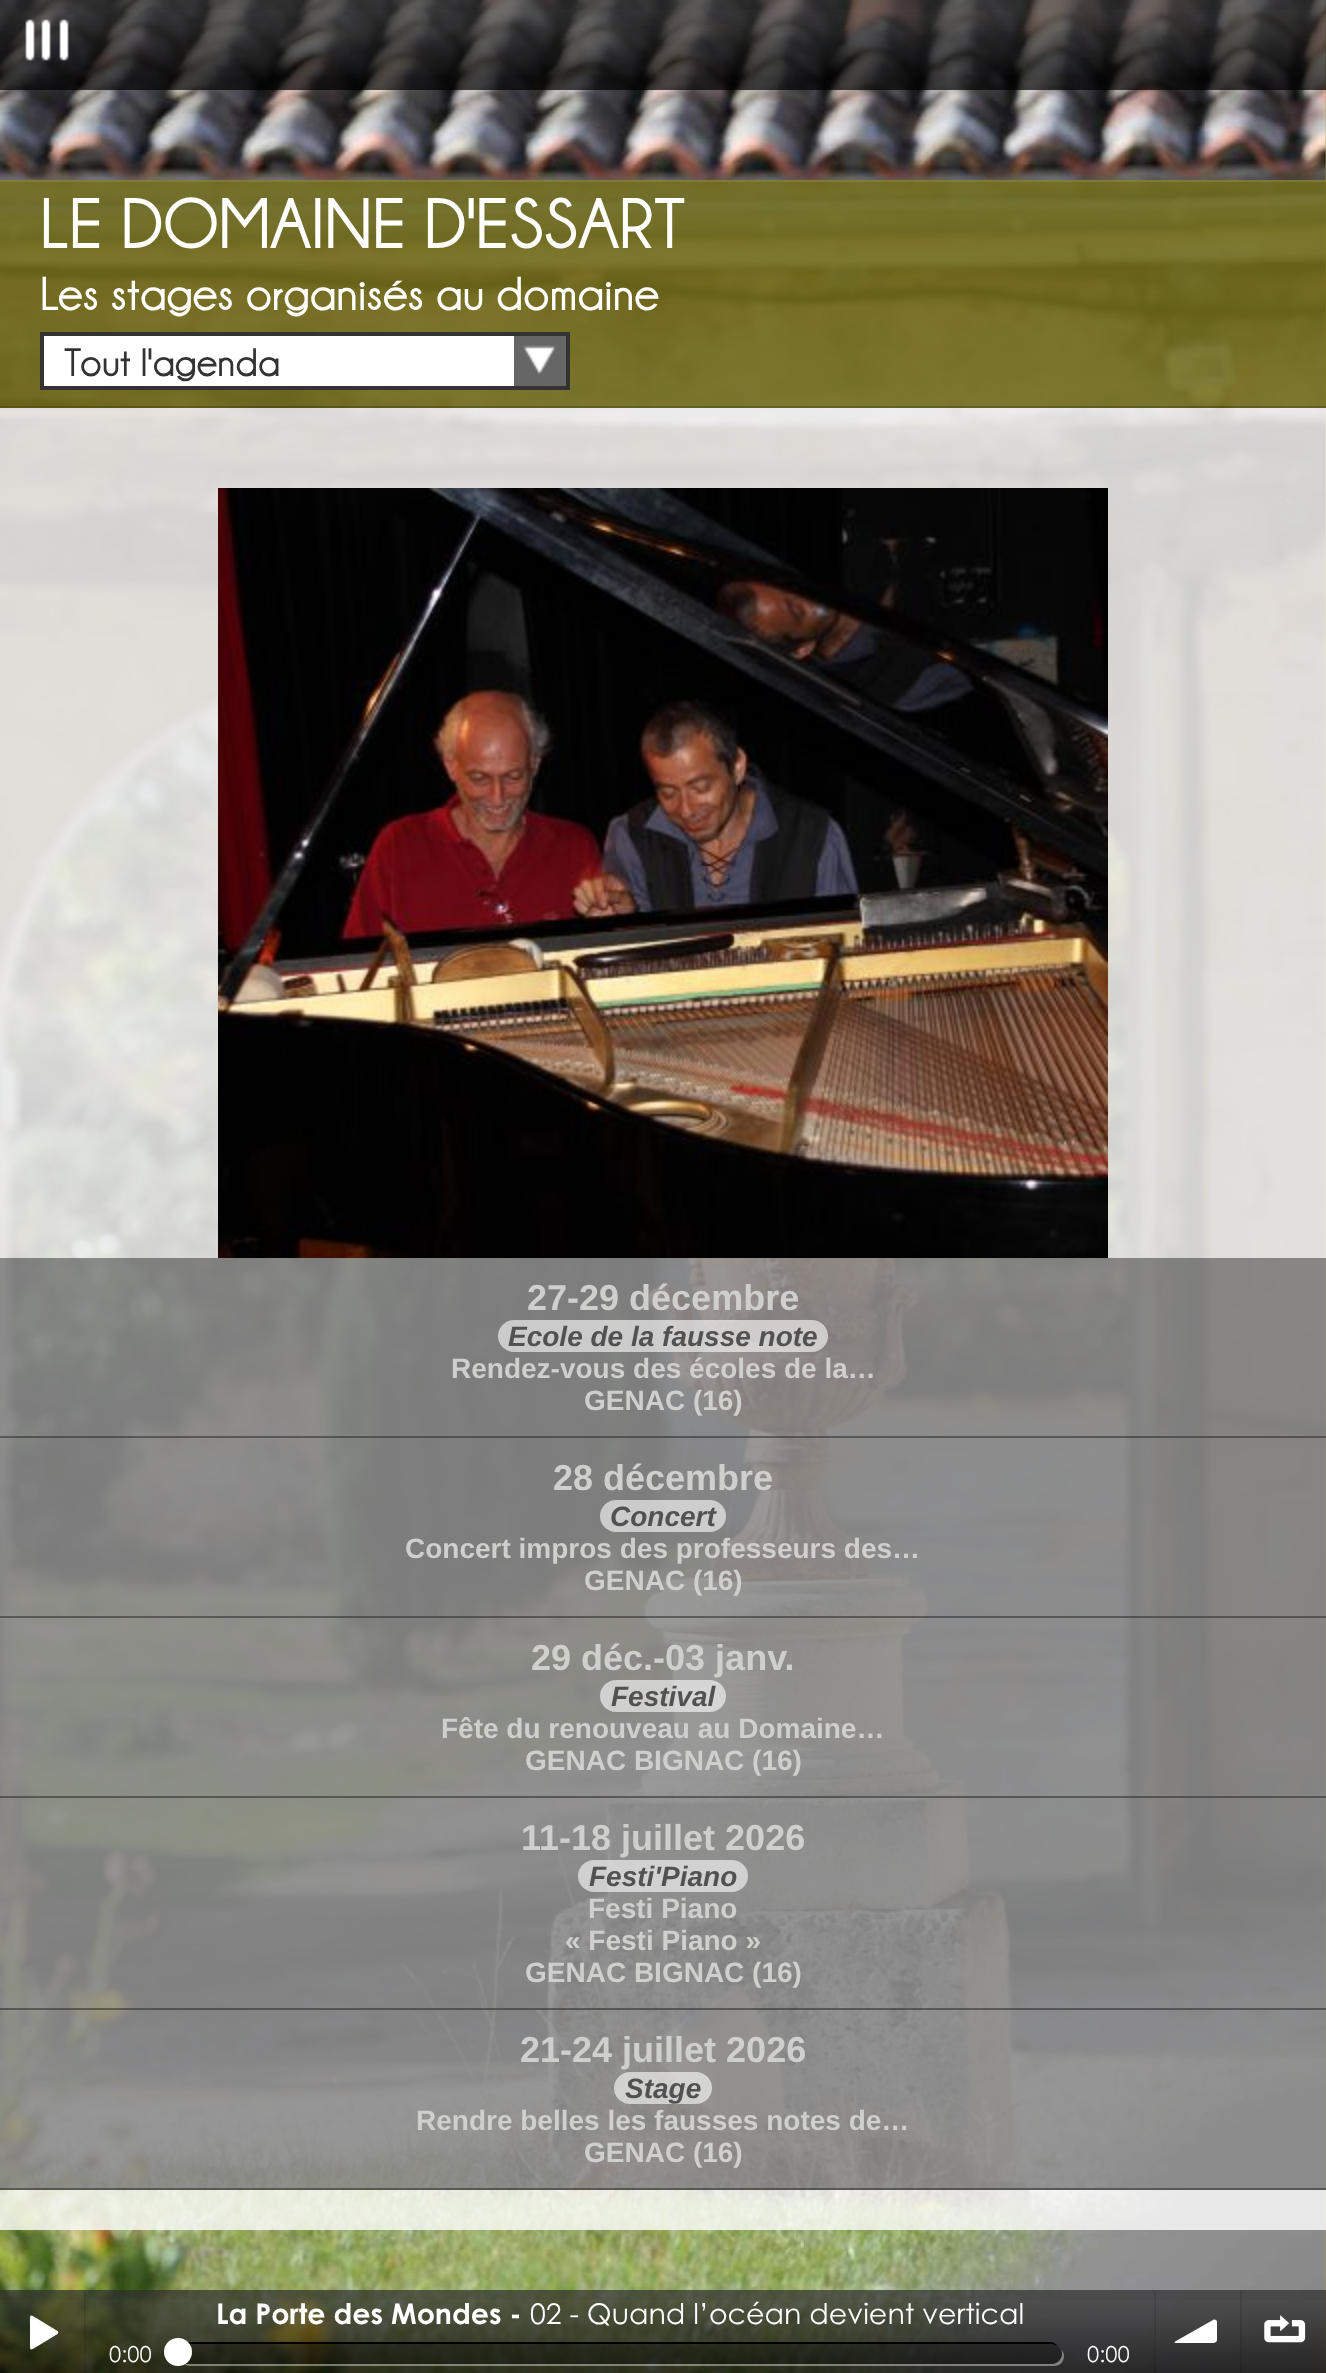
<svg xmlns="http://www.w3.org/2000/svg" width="1326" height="2373">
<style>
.a{font:bold 72px 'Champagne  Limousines';fill:#fff}
.b{font:bold 48px 'Champagne  Limousines';fill:#fff}
.c{font:bold 40px 'Champagne  Limousines';fill:#333}
.d{font:bold 36px Liberation Sans;fill:#cfcfce}
.e{font:italic bold 28px Liberation Sans;fill:#525252}
.f{font:bold 28px Liberation Sans;fill:#cfcfce}
.g{font:bold 28.5px Century Gothic;fill:#fff}
.h{font:28.5px Century Gothic;fill:#fff}
.i{font:22px Century Gothic;fill:#fff}
</style>
<rect width="100%" height="100%" fill="#afa525"/>
<image href="1.png" x="0" y="0" width="1326" height="2373"/>
<image href="2.png" x="0" y="0" width="1326" height="90"/>
<image href="3.png" x="25" y="19" width="44" height="42"/>
<path fill="#867f1dcc" d="M0 180h1326v228H0z"/>
<path fill="#0000001a" d="M0 180h1326v228H0z"/>
<path fill="#ffffff1a" d="M0 180h1326v2H0z"/>
<path fill="#00000033" d="M0 406h1326v2H0z"/>
<path fill="#fff" d="M44 336h470v50H44z"/>
<image href="4.png" x="514" y="336" width="52" height="50"/>
<path fill="none" stroke="#333" stroke-width="4" d="M42 334h526v54H42z"/>
<path fill="#ffffffcc" d="M0 408h1326v1822H0z"/>
<image href="5.png" x="218" y="488" width="890" height="770"/>
<path fill="#00000066" d="M0 1258h1326v932H0z"/>
<path fill="#33333399" d="M0 1436h1326v2H0z"/>
<rect fill="#ffffff99" x="498" y="1320" width="330" height="32" rx="16"/>
<path fill="#33333399" d="M0 1616h1326v2H0z"/>
<rect fill="#ffffff99" x="600" y="1500" width="126" height="32" rx="16"/>
<path fill="#33333399" d="M0 1796h1326v2H0z"/>
<rect fill="#ffffff99" x="600" y="1680" width="126" height="32" rx="16"/>
<path fill="#33333399" d="M0 2008h1326v2H0z"/>
<rect fill="#ffffff99" x="578" y="1860" width="170" height="32" rx="16"/>
<path fill="#33333399" d="M0 2188h1326v2H0z"/>
<rect fill="#ffffff99" x="614" y="2072" width="98" height="32" rx="16"/>
<image href="6.png" x="0" y="2290" width="1326" height="83"/>
<path fill="#0000001a" d="M84 2290h2v83H84z"/>
<path fill="#fff" d="M57.5 2331l-20.5-12.5c-7.5-4.5-7-4.5-7 4v19.5c0 9-.5 9 7 4.5l20.5-12.5c1-1 1-2.5 0-3z"/>
<path fill="#0000001a" d="M1154 2290h2v83H1154z"/>
<path fill="#ffffff66" d="M182 2362c2 2 5 4 8 4h864c6 0 10-4 10-10c0-3-2-6-4-8c5 6 0 16-8 16h-864c-2 0-4-1-6-2z"/>
<path fill="#000" d="M186 2342c-9 0-13 12-6 18c-5-6 0-16 8-16h864c2 0 4 1 6 2c-2-2-5-4-8-4z"/>
<rect fill="#0000004d" x="178" y="2344" width="884" height="20" rx="10"/>
<circle fill="#fff" cx="178" cy="2352" r="14"/>
<path fill="#0000001a" d="M1240 2290h2v83H1240z"/>
<path fill="#fff" d="M1217 2340c0 2-2 3-4 3h-37c-2 0-2-1 0-2l37-21c2-1 4 0 4 2z"/>
<image href="7.png" x="1264" y="2315" width="42" height="28"/>
<text class="a" x="40" y="248">LE DOMAINE D'ESSART</text>
<text class="b" x="40" y="310">Les stages organisés au domaine</text>
<text class="c" x="64" y="376">Tout l'agenda</text>
<text class="d" x="527" y="1310">27-29 décembre</text>
<text class="e" x="508" y="1346">Ecole de la fausse note</text>
<text class="f" x="451" y="1378">Rendez-vous des écoles de la…</text>
<text class="f" x="584" y="1410">GENAC (16)</text>
<text class="d" x="553" y="1490">28 décembre</text>
<text class="e" x="610" y="1526">Concert</text>
<text class="f" x="405" y="1558">Concert impros des professeurs des…</text>
<text class="f" x="584" y="1590">GENAC (16)</text>
<text class="d" x="531" y="1670">29 déc.-03 janv.</text>
<text class="e" x="611" y="1706">Festival</text>
<text class="f" x="441" y="1738">Fête du renouveau au Domaine…</text>
<text class="f" x="525" y="1770">GENAC BIGNAC (16)</text>
<text class="d" x="521" y="1850">11-18 juillet 2026</text>
<text class="e" x="589" y="1886">Festi'Piano</text>
<text class="f" x="588" y="1918">Festi Piano</text>
<text class="f" x="565" y="1950">« Festi Piano »</text>
<text class="f" x="525" y="1982">GENAC BIGNAC (16)</text>
<text class="d" x="520" y="2062">21-24 juillet 2026</text>
<text class="e" x="625" y="2098">Stage</text>
<text class="f" x="416" y="2130">Rendre belles les fausses notes de…</text>
<text class="f" x="584" y="2162">GENAC (16)</text>
<text class="g" x="216" y="2324">La Porte des Mondes -</text>
<text class="h" x="530" y="2324">02 - Quand l’océan devient vertical</text>
<text class="i" x="109" y="2362">0:00</text>
<text class="i" x="1087" y="2362">0:00</text>
</svg>
